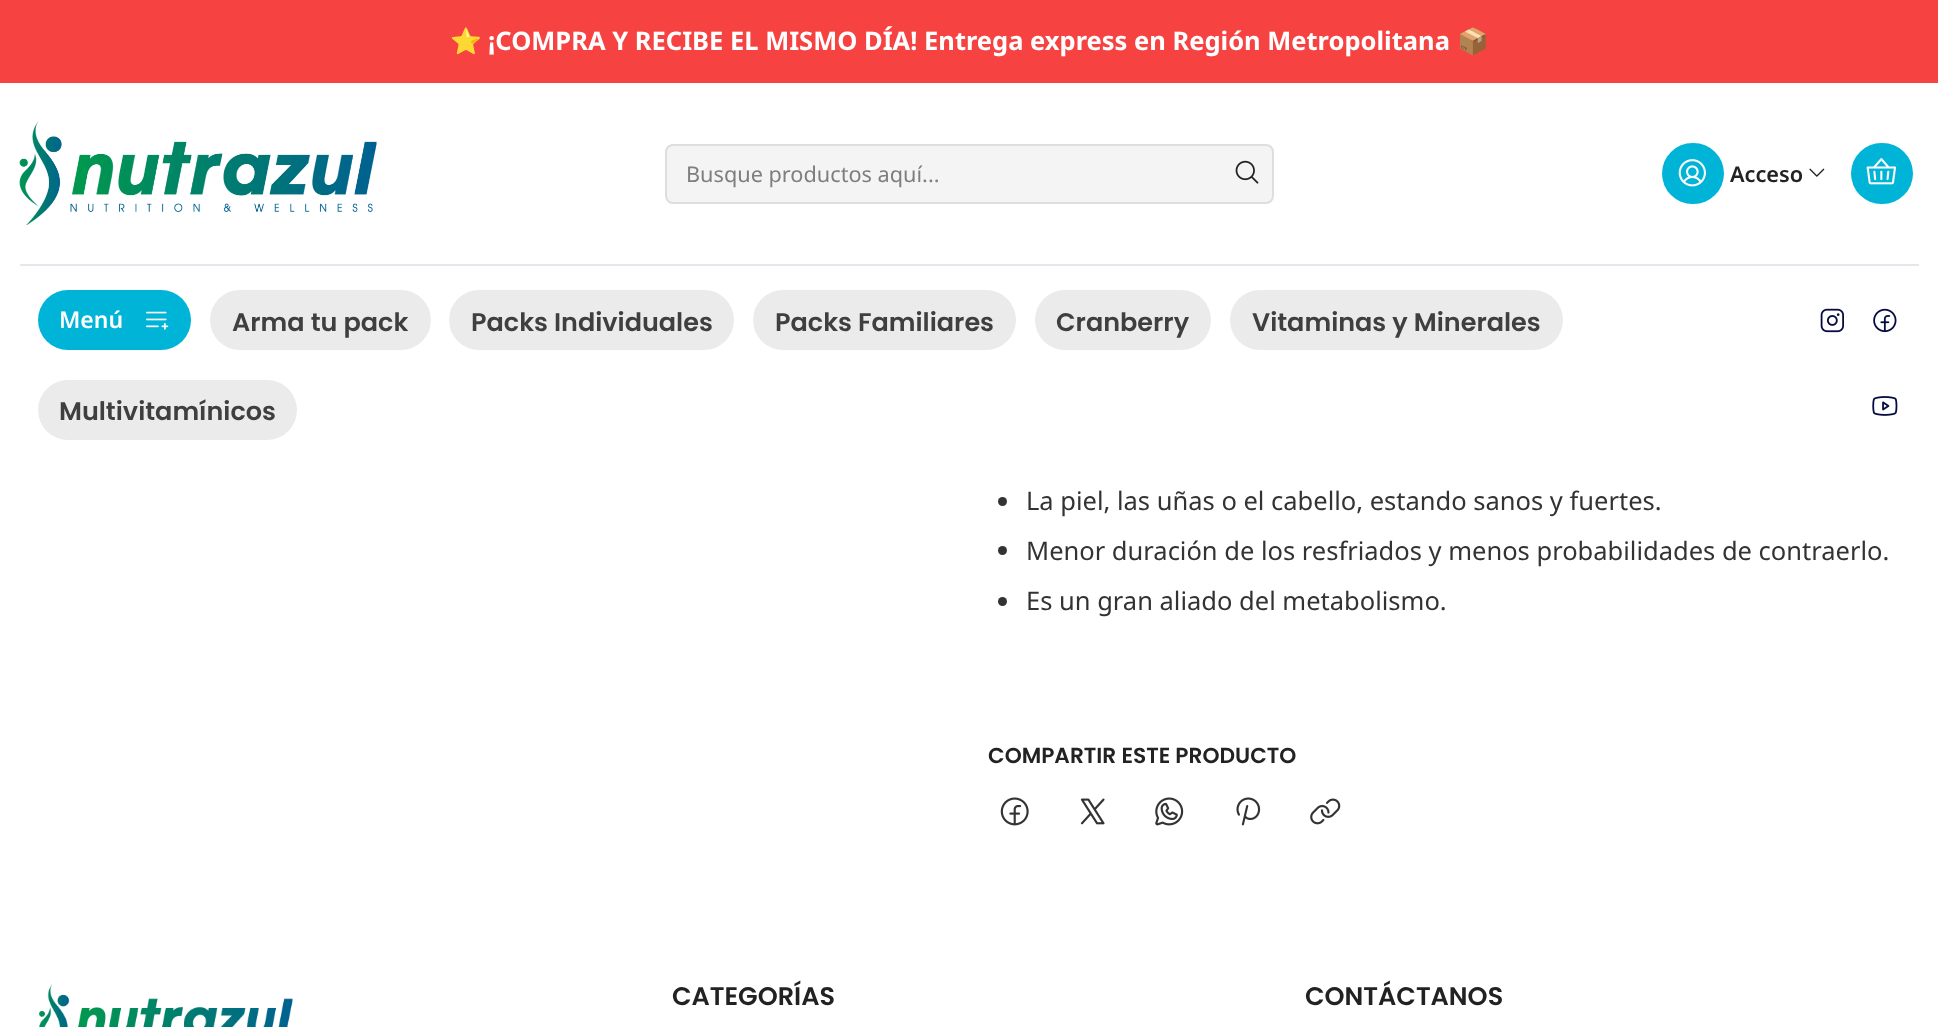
<svg xmlns="http://www.w3.org/2000/svg" width="1938" height="1027">
<style>
.a{font:bold 25.5px Noto Color Emoji;fill:#fff}
.b{font:bold 25.5px Noto Sans;fill:#fff}
.c{font:21.7px Noto Sans;fill:#7e7e7e}
.d{font:600 21.7px Noto Sans;fill:#222}
.e{font:600 23px Noto Sans;fill:#fff}
.f{font:600 25.5px Poppins;fill:#3f3f3f}
.g{font:25.5px Noto Sans;fill:#333}
.h{font:600 21.7px Poppins;fill:#222}
.i{font:600 25.5px Poppins;fill:#222}
</style>
<rect width="100%" height="100%" fill="#fff"/>
<path fill="#f74242" d="M0 0h1938v83H0z"/>
<image href="1.png" x="19" y="121" width="358" height="104"/>
<rect fill="#f4f4f4" x="665" y="144" width="609" height="60" rx="8"/>
<rect fill="none" stroke="#2222221a" stroke-width="2" x="666" y="145" width="607" height="58" rx="7"/>
<image href="2.png" x="1235" y="160" width="24" height="24"/>
<rect fill="#00b4d8" x="1662" y="143" width="62" height="61" rx="30.5"/>
<image href="3.png" x="1678" y="159" width="28" height="28"/>
<image href="4.png" x="1809" y="168" width="16" height="9"/>
<rect fill="#00b4d8" x="1851" y="143" width="62" height="61" rx="30.5"/>
<image href="5.png" x="1866" y="158" width="31" height="27"/>
<path fill="#e6e7ec" d="M20 264h1899v2H20z"/>
<rect fill="#00b4d8" x="38" y="290" width="153" height="60" rx="30"/>
<image href="6.png" x="146" y="311" width="23" height="19"/>
<rect fill="#ebebeb" x="210" y="290" width="221" height="60" rx="30"/>
<rect fill="#ebebeb" x="449" y="290" width="285" height="60" rx="30"/>
<rect fill="#ebebeb" x="753" y="290" width="263" height="60" rx="30"/>
<rect fill="#ebebeb" x="1035" y="290" width="176" height="60" rx="30"/>
<rect fill="#ebebeb" x="1230" y="290" width="333" height="60" rx="30"/>
<rect fill="#ebebeb" x="38" y="380" width="259" height="60" rx="30"/>
<image href="7.png" x="1820" y="308" width="24" height="25"/>
<image href="8.png" x="1873" y="308" width="24" height="25"/>
<image href="9.png" x="1872" y="396" width="26" height="20"/>
<circle fill="#333" cx="1002.5" cy="501.5" r="4.5"/>
<circle fill="#333" cx="1002.5" cy="550.5" r="4.5"/>
<circle fill="#333" cx="1002.5" cy="601.5" r="4.5"/>
<image href="10.png" x="1000" y="797" width="29" height="29"/>
<image href="11.png" x="1080" y="798" width="25" height="27"/>
<image href="12.png" x="1155" y="797" width="29" height="29"/>
<image href="13.png" x="1236" y="797" width="25" height="29"/>
<image href="14.png" x="1310" y="798" width="31" height="27"/>
<image href="15.png" x="39" y="984" width="254" height="43"/>
<text class="a" x="450" y="50">⭐</text>
<text class="b" x="488" y="50">¡COMPRA Y RECIBE EL MISMO DÍA! Entrega express en Región Metropolitana</text>
<text class="a" x="1457" y="50">📦</text>
<text class="c" x="686" y="182">Busque productos aquí...</text>
<text class="d" x="1730" y="182">Acceso</text>
<text class="e" x="59" y="328">Menú</text>
<text class="f" x="232" y="331">Arma tu pack</text>
<text class="f" x="471" y="331">Packs Individuales</text>
<text class="f" x="775" y="331">Packs Familiares</text>
<text class="f" x="1056" y="331">Cranberry</text>
<text class="f" x="1252" y="331">Vitaminas y Minerales</text>
<text class="f" x="59" y="420">Multivitamínicos</text>
<text class="g" x="1026" y="510">La piel, las uñas o el cabello, estando sanos y fuertes.</text>
<text class="g" x="1026" y="560">Menor duración de los resfriados y menos probabilidades de contraerlo.</text>
<text class="g" x="1026" y="610">Es un gran aliado del metabolismo.</text>
<text class="h" x="988" y="763">COMPARTIR ESTE PRODUCTO</text>
<text class="i" x="672" y="1005">CATEGORÍAS</text>
<text class="i" x="1305" y="1005">CONTÁCTANOS</text>
</svg>
